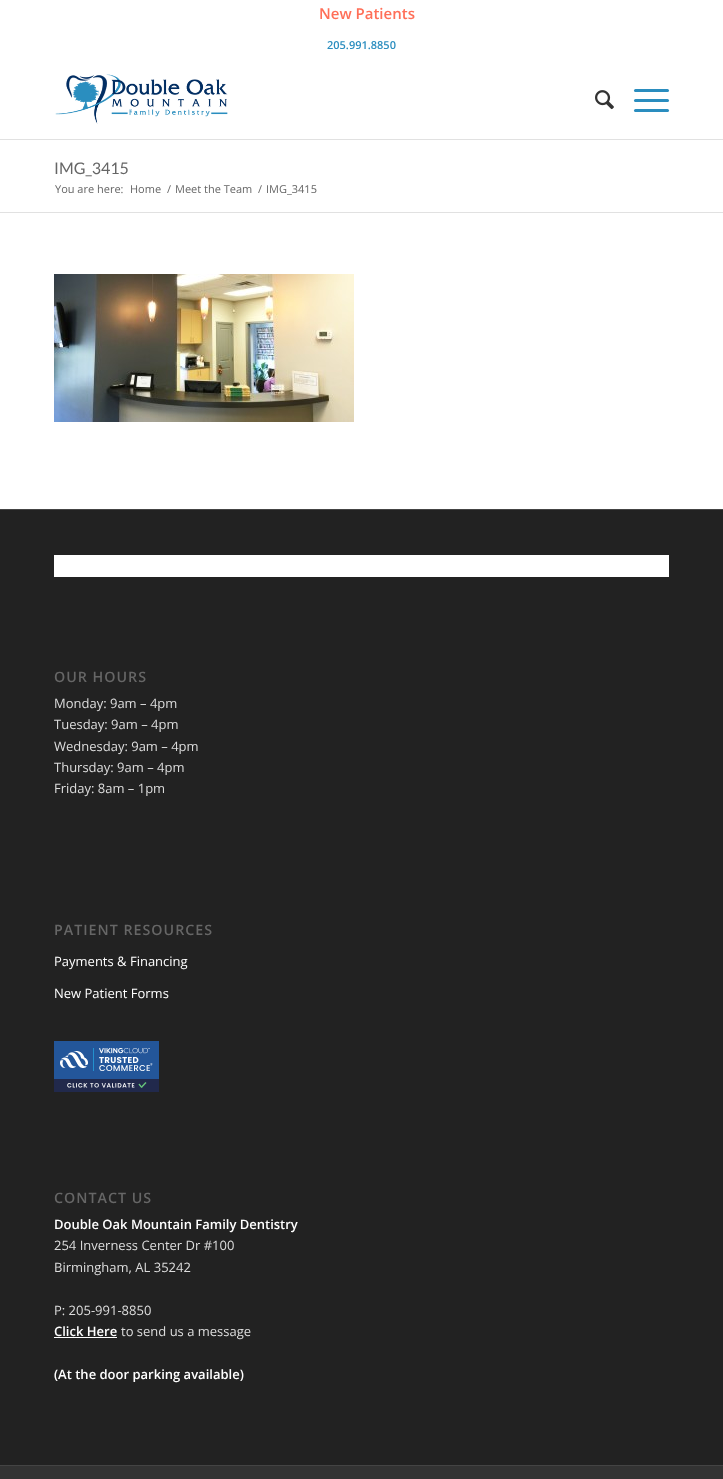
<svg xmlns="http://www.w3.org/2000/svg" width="723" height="1479">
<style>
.a{font:600 15px Open Sans;fill:#ff6f58}
.b{font:600 11px Open Sans;fill:#2a8dbf}
.c{font:16px Lato;fill:#666}
.d{font:11px Open Sans;fill:#666}
.e{font:600 14.25px Open Sans;letter-spacing:1px;fill:#666}
.f{font:13px Open Sans;fill:#ddd}
.g{font:13px Open Sans;fill:#fff}
.h{font:600 13px Open Sans;fill:#fff}
</style>
<rect width="100%" height="100%" fill="#fff"/>
<path fill="#e1e1e1" d="M0 139h723v1H0z"/>
<image href="1.png" x="55" y="74" width="173" height="50"/>
<image href="2.png" x="595" y="90" width="19" height="20"/>
<rect fill="#2a8dbf" x="634" y="99" width="35" height="3" rx="1.5"/>
<rect fill="#2a8dbf" x="634" y="89" width="35" height="3" rx="1.5"/>
<rect fill="#2a8dbf" x="634" y="109" width="35" height="3" rx="1.5"/>
<path fill="#e1e1e1" d="M0 212h723v1H0z"/>
<image href="3.png" x="54" y="274" width="300" height="148"/>
<path fill="#222" d="M0 510h723v955H0z"/>
<path fill="#444" d="M0 509h723v1H0z"/>
<path fill="#fff" d="M54 555h615v22H54z"/>
<image href="4.png" x="54" y="1041" width="105" height="51"/>
<path fill="#fff" d="M54 1337h63v1H54z"/>
<path fill="#333" d="M0 1466h723v13H0z"/>
<path fill="#444" d="M0 1465h723v1H0z"/>
<text class="a" x="319" y="19">New Patients</text>
<text class="b" x="327" y="49">205.991.8850</text>
<text class="c" x="54" y="174">IMG_3415</text>
<text class="d" x="55" y="193">You are here:</text>
<text class="d" x="130" y="193">Home</text>
<text class="d" x="167" y="193">/</text>
<text class="d" x="175" y="193">Meet the Team</text>
<text class="d" x="258" y="193">/</text>
<text class="d" x="266" y="193">IMG_3415</text>
<text class="e" x="54" y="682">OUR HOURS</text>
<text class="f" x="54" y="708">Monday: 9am – 4pm</text>
<text class="f" x="54" y="729">Tuesday: 9am – 4pm</text>
<text class="f" x="54" y="751">Wednesday: 9am – 4pm</text>
<text class="f" x="54" y="772">Thursday: 9am – 4pm</text>
<text class="f" x="54" y="793">Friday: 8am – 1pm</text>
<text class="e" x="54" y="935">PATIENT RESOURCES</text>
<text class="g" x="54" y="966">Payments &amp; Financing</text>
<text class="g" x="54" y="998">New Patient Forms</text>
<text class="e" x="54" y="1203">CONTACT US</text>
<text class="h" x="54" y="1229">Double Oak Mountain Family Dentistry</text>
<text class="f" x="54" y="1250">254 Inverness Center Dr #100</text>
<text class="f" x="54" y="1272">Birmingham, AL 35242</text>
<text class="f" x="54" y="1315">P: 205-991-8850</text>
<text class="h" x="54" y="1336">Click Here</text>
<text class="f" x="121" y="1336">to send us a message</text>
<text class="h" x="54" y="1379">(At the door parking available)</text>
</svg>
